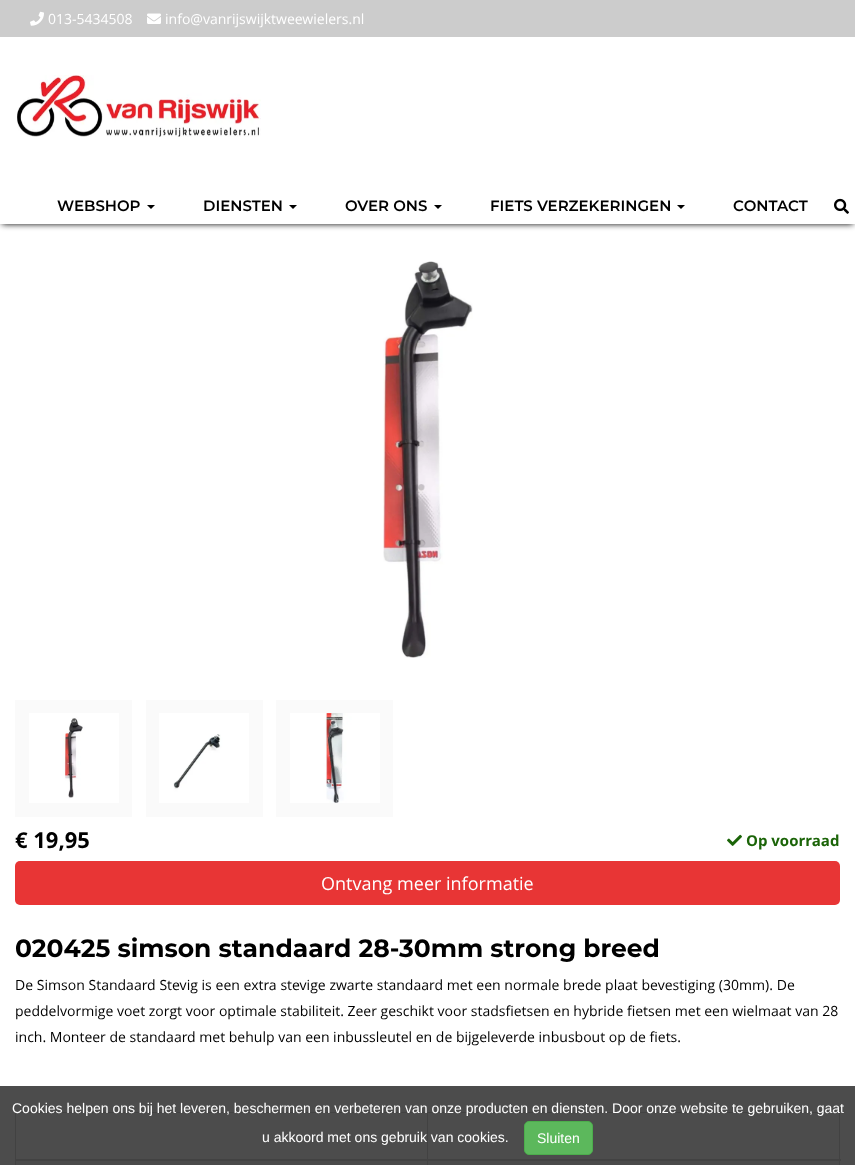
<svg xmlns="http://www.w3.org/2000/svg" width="855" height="1165">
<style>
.a{font:14px Open Sans;fill:#fff}
.b{font:600 15px Montserrat;fill:#000}
.c{font:bold 22px Open Sans;fill:#000}
.d{font:bold 15px Open Sans;fill:#1b6408}
.e{font:18px Open Sans;fill:#fff}
.f{font:bold 25px Montserrat;fill:#000}
.g{font:14px Open Sans;fill:#000}
.h{font:14px Liberation Sans;fill:#fff}
</style>
<rect width="100%" height="100%" fill="#fff"/>
<path fill="#000" filter="blur(3px)" d="M2 4h851v220H2z"/>
<path fill="#fff" d="M0 37h855v187H0z"/>
<path fill="#ccc" d="M0 0h855v37H0z"/>
<image href="1.png" x="30" y="11" width="14" height="15"/>
<image href="2.png" x="147" y="13" width="14" height="11"/>
<image href="3.png" x="17" y="75" width="244" height="62"/>
<path fill="#000" d="M147 205h8l-4 4z"/>
<path fill="#000" d="M289 205h8l-4 4z"/>
<path fill="#000" d="M434 205h8l-4 4z"/>
<path fill="#000" d="M677 205h8l-4 4z"/>
<image href="4.png" x="834" y="198" width="15" height="16"/>
<image href="5.png" x="383" y="261" width="90" height="397"/>
<path fill="#fafafa" d="M15 700h117v117H15z"/>
<image href="6.png" x="29" y="713" width="90" height="90"/>
<path fill="#fafafa" d="M146 700h117v117H146z"/>
<image href="7.png" x="159" y="713" width="90" height="90"/>
<path fill="#fafafa" d="M276 700h117v117H276z"/>
<image href="8.png" x="290" y="713" width="90" height="90"/>
<image href="9.png" x="727" y="834" width="15" height="12"/>
<rect fill="#e83535" x="15" y="861" width="825" height="44" rx="5"/>
<path fill="#ddd" d="M15 1112h825v1H15z"/>
<path fill="#f9f9f9" d="M16 1161h824v4H16z"/>
<path fill="#ddd" d="M839 1112h1v53H839z"/>
<path fill="#ddd" d="M15 1112h1v53H15z"/>
<path fill="#ddd" d="M427 1112h1v53H427z"/>
<path fill="#ddd" d="M15 1159h826v2H15z"/>
<path fill="#000000b3" d="M0 1086h855v79H0z"/>
<rect fill="#5cb85c" stroke="#4cae4c" x="524.5" y="1121.5" width="68" height="33" rx="4.5"/>
<text class="a" x="48" y="24">013-5434508</text>
<text class="a" x="165" y="24">info@vanrijswijktweewielers.nl</text>
<text class="b" x="57" y="211">WEBSHOP</text>
<text class="b" x="203" y="211">DIENSTEN</text>
<text class="b" x="345" y="211">OVER ONS</text>
<text class="b" x="490" y="211">FIETS VERZEKERINGEN</text>
<text class="b" x="733" y="211">CONTACT</text>
<text class="c" x="15" y="848">€ 19,95</text>
<text class="d" x="746" y="846">Op voorraad</text>
<text class="e" x="321" y="890">Ontvang meer informatie</text>
<text class="f" x="15" y="957">020425 simson standaard 28-30mm strong breed</text>
<text class="g" x="15" y="990" word-spacing="0.1">De Simson Standaard Stevig is een extra stevige zwarte standaard met een normale brede plaat bevestiging (30mm). De</text>
<text class="g" x="15" y="1016">peddelvormige voet zorgt voor optimale stabiliteit. Zeer geschikt voor stadsfietsen en hybride fietsen met een wielmaat van 28</text>
<text class="g" x="15" y="1042">inch. Monteer de standaard met behulp van een inbussleutel en de bijgeleverde inbusbout op de fiets.</text>
<text class="h" x="12" y="1113">Cookies helpen ons bij het leveren, beschermen en verbeteren van onze producten en diensten. Door onze website te gebruiken, gaat</text>
<text class="h" x="262" y="1142">u akkoord met ons gebruik van cookies.</text>
<text class="h" x="537" y="1143">Sluiten</text>
</svg>
